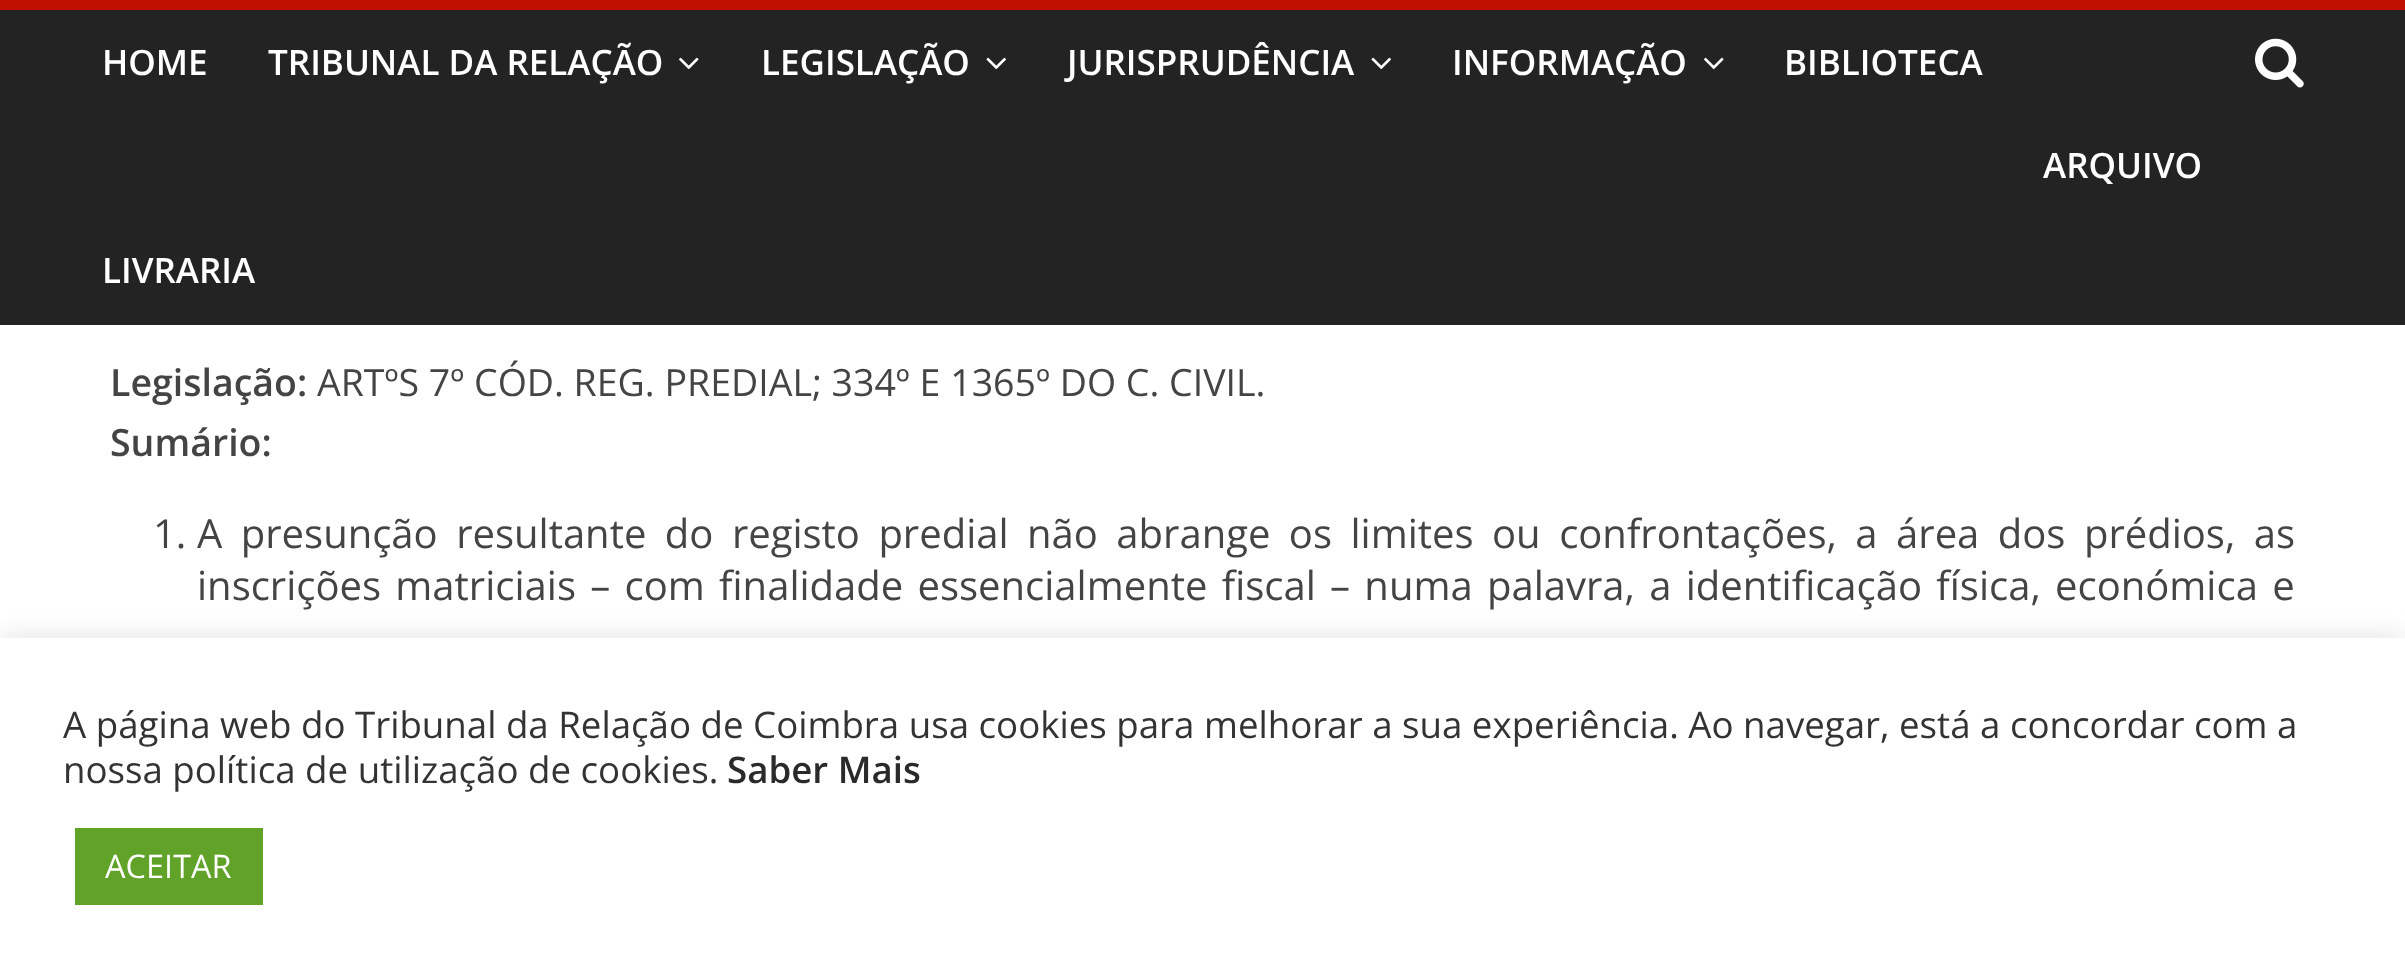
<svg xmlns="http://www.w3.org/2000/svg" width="2405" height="978">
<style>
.a{font:600 35px Open Sans;fill:#fff}
.b{font:600 37.5px Open Sans;fill:#444}
.c{font:37.5px Open Sans;fill:#444}
.d{font:40px Open Sans;fill:#444}
.e{font:36.67px Open Sans;fill:#333}
.f{font:600 36.67px Open Sans;fill:#2a2a2a}
.g{font:32.5px Open Sans;fill:#fff}
</style>
<rect width="100%" height="100%" fill="#fff"/>
<path fill="#232323" d="M0 10h2405v315H0z"/>
<path fill="#bf1000" d="M0 0h2405v10H0z"/>
<image href="1.png" x="679" y="57" width="20" height="13"/>
<image href="2.png" x="986" y="57" width="20" height="13"/>
<image href="2.png" x="1371" y="57" width="20" height="13"/>
<image href="1.png" x="1704" y="57" width="20" height="13"/>
<image href="3.png" x="2255" y="38" width="49" height="50"/>
<path fill="#acabab4d" filter="blur(12.5px)" d="M0 635h2405v343H0z"/>
<path fill="#fff" d="M0 638h2405v340H0z"/>
<path fill="#61a229" d="M75 828h188v77H75z"/>
<text class="a" x="102" y="75">HOME</text>
<text class="a" x="268" y="75">TRIBUNAL DA RELAÇÃO</text>
<text class="a" x="761" y="75">LEGISLAÇÃO</text>
<text class="a" x="1067" y="75">JURISPRUDÊNCIA</text>
<text class="a" x="1452" y="75">INFORMAÇÃO</text>
<text class="a" x="1784" y="75">BIBLIOTECA</text>
<text class="a" x="2043" y="178">ARQUIVO</text>
<text class="a" x="102" y="283">LIVRARIA</text>
<text class="b" x="110" y="396">Legislação:</text>
<text class="c" x="317" y="396">ARTºS 7º CÓD. REG. PREDIAL; 334º E 1365º DO C. CIVIL.</text>
<text class="b" x="110" y="456">Sumário:</text>
<text class="d" x="153" y="548">1.</text>
<text class="d" x="197" y="548" word-spacing="8.1">A presunção resultante do registo predial não abrange os limites ou confrontações, a área dos prédios, as</text>
<text class="d" x="197" y="600" word-spacing="3.9">inscrições matriciais – com finalidade essencialmente fiscal – numa palavra, a identificação física, económica e</text>
<text class="e" x="63" y="738">A página web do Tribunal da Relação de Coimbra usa cookies para melhorar a sua experiência. Ao navegar, está a concordar com a</text>
<text class="e" x="63" y="783">nossa política de utilização de cookies.</text>
<text class="f" x="727" y="783">Saber Mais</text>
<text class="g" x="105" y="878">ACEITAR</text>
</svg>
